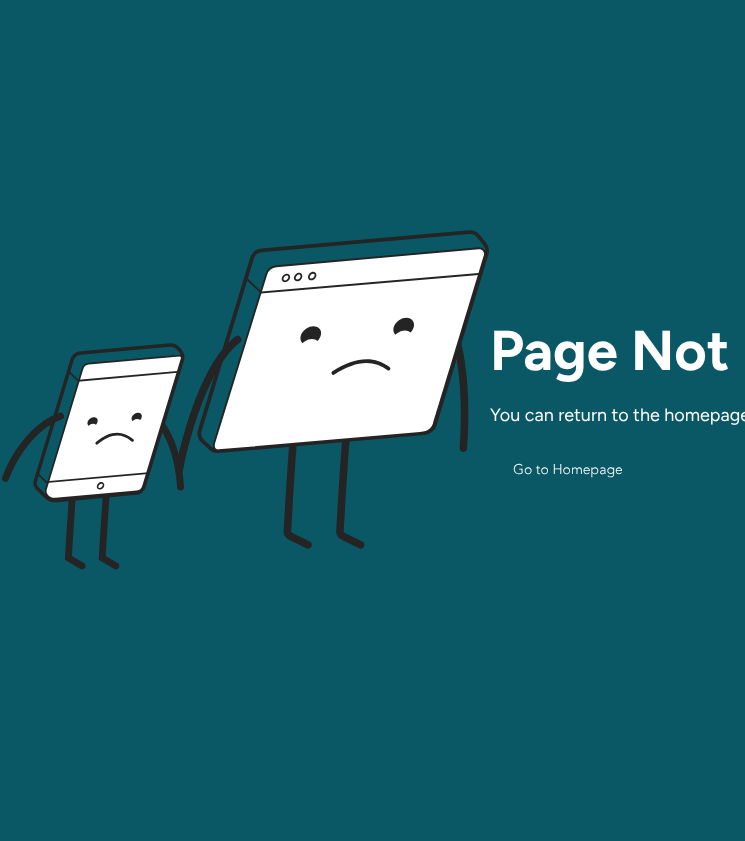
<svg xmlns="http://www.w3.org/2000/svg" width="745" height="841">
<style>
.a{font:bold 56px Figtree;fill:#fff}
.b{font:18px Figtree;fill:#fff}
.c{font:300 14px 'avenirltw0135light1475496';fill:#fff}
</style>
<rect width="100%" height="100%" fill="#0a5865"/>
<image href="1.png" x="2" y="230" width="487" height="340"/>
<text class="a" x="490" y="370">Page Not</text>
<text class="b" x="490" y="421">You can return to the homepage</text>
<text class="c" x="513" y="474">Go to Homepage</text>
</svg>
